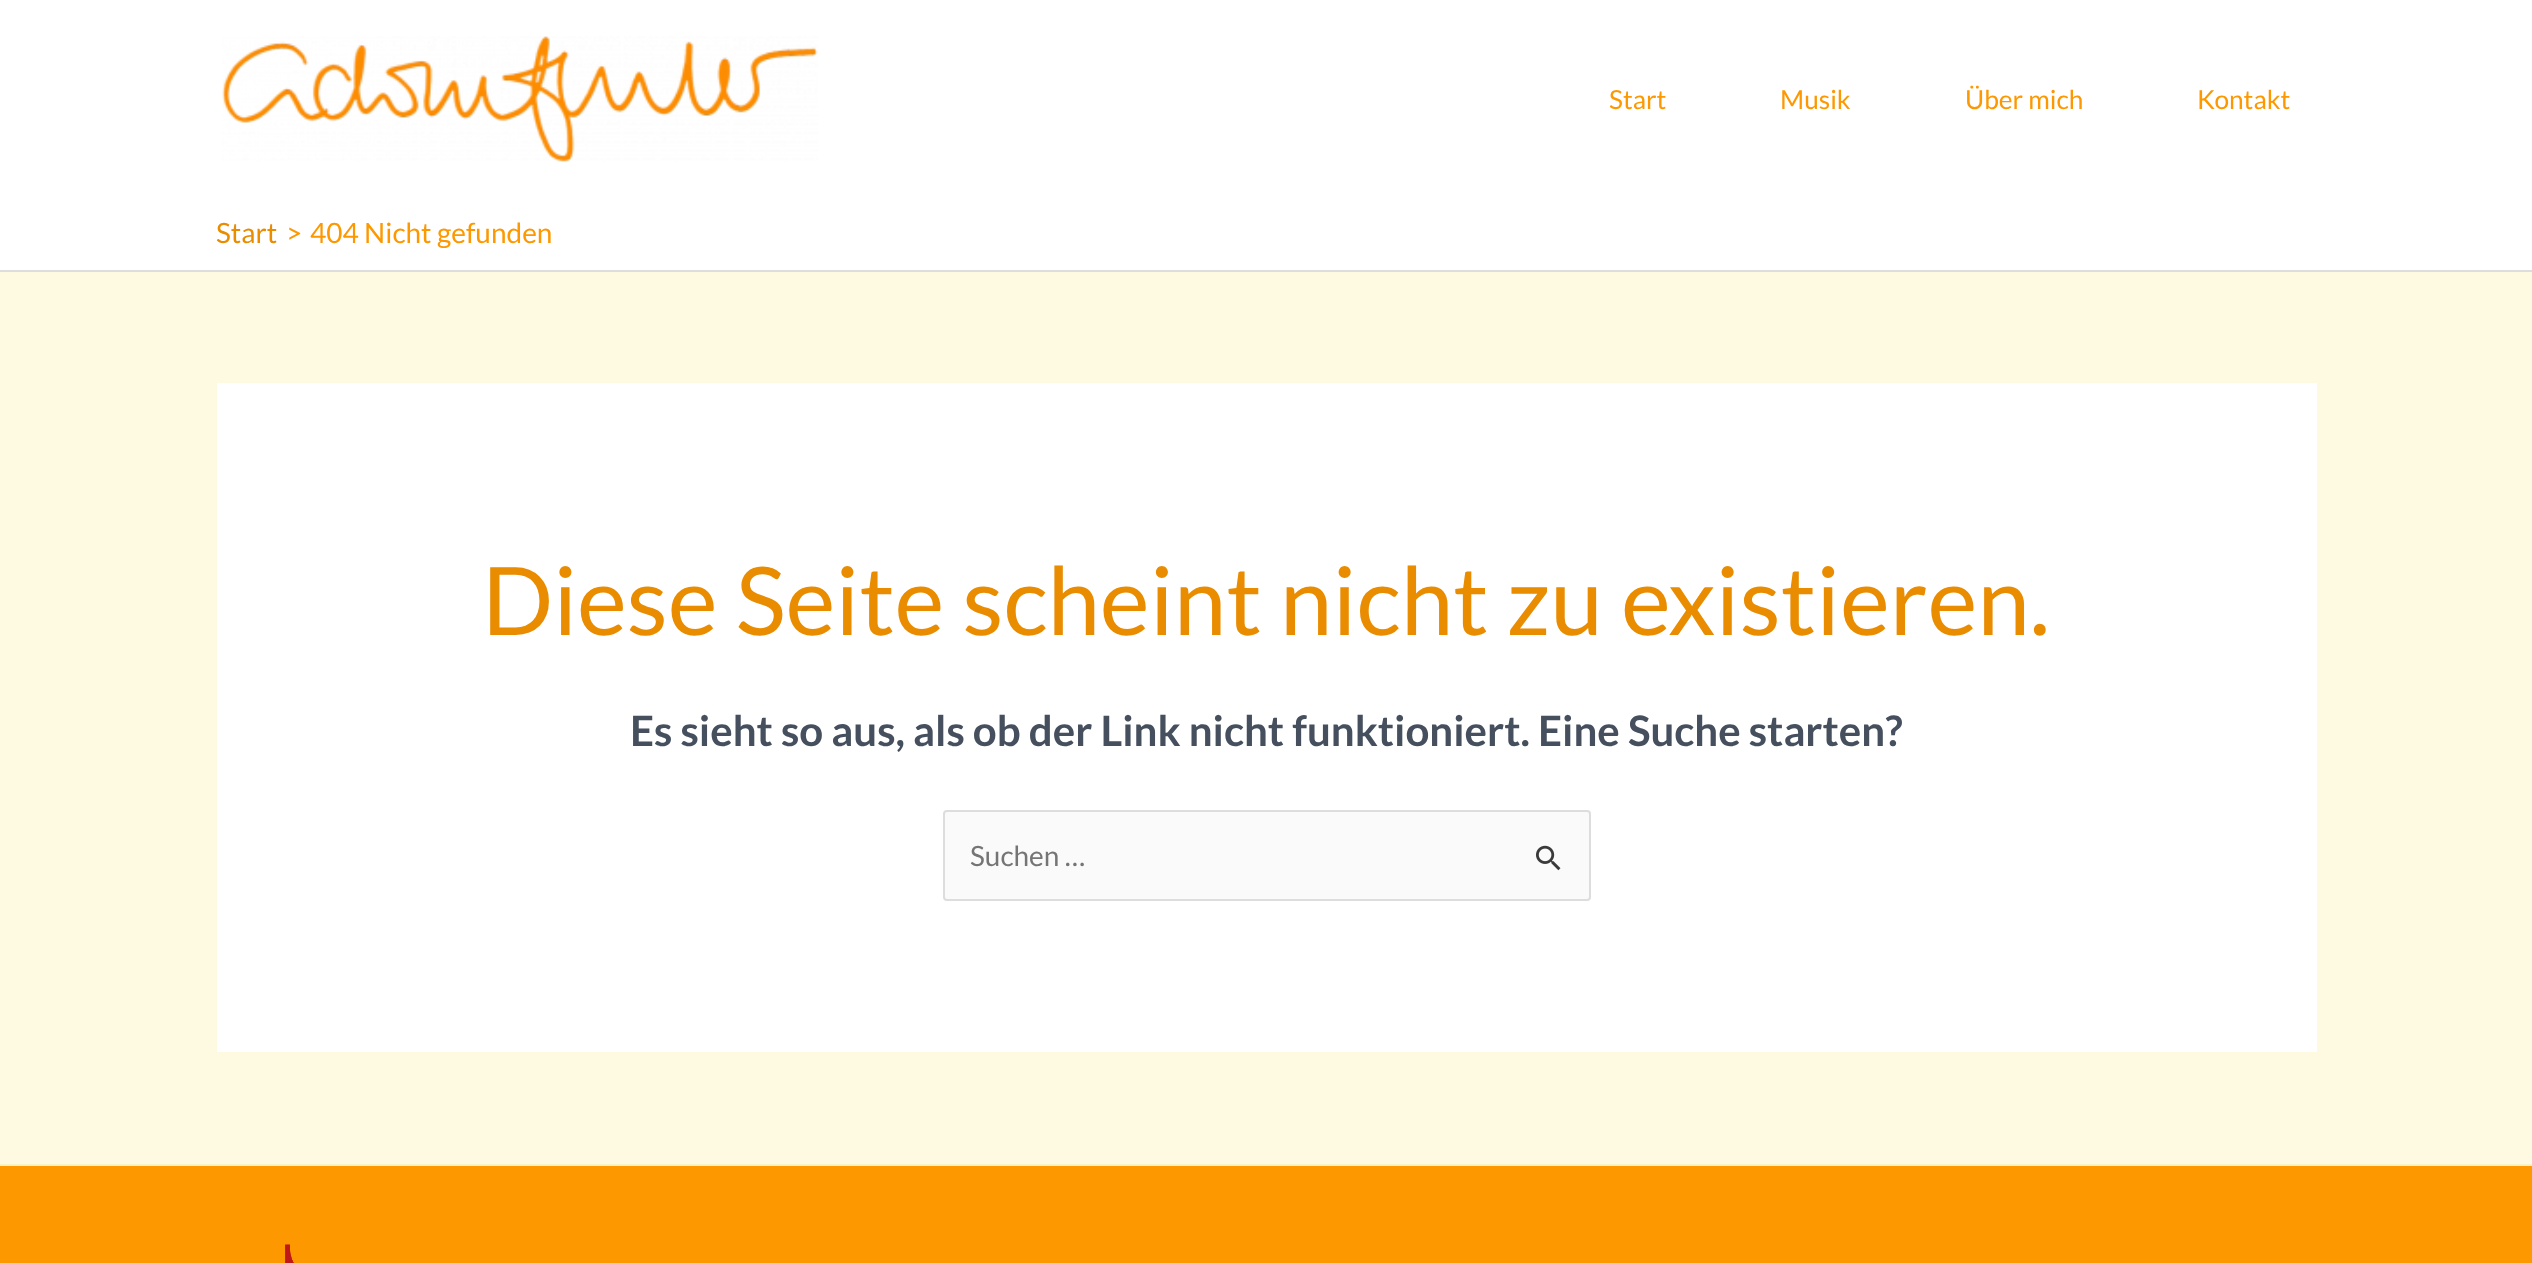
<svg xmlns="http://www.w3.org/2000/svg" width="2532" height="1263">
<style>
.a{font:26.25px Lato;fill:#fd9800}
.b{font:28px Lato;fill:#e98c00}
.c{font:28px Lato;fill:#fd9800}
.d{font:94.5px Lato;fill:#e98c00}
.e{font:bold 42px Lato;fill:#454f5e}
.f{font:28px Lato;fill:#757575}
</style>
<rect width="100%" height="100%" fill="#fef9e1"/>
<path fill="#fff" d="M0 0h2532v270H0z"/>
<image href="1.png" x="222" y="36" width="596" height="127"/>
<path fill="#ddd" d="M0 270h2532v2H0z"/>
<path fill="#fff" d="M217 383h2100v669H217z"/>
<rect fill="#fafafa" stroke="#ddd" stroke-width="2" x="944" y="811" width="646" height="89" rx="3"/>
<image href="2.png" x="1536" y="845" width="25" height="26"/>
<path fill="#fd9800" d="M0 1166h2532v97H0z"/>
<path fill="#f9f0c8" d="M0 1164h2532v2H0z"/>
<image href="3.png" x="285" y="1244" width="9" height="19"/>
<text class="a" x="1609" y="109">Start</text>
<text class="a" x="1780" y="109">Musik</text>
<text class="a" x="1965" y="109">Über mich</text>
<text class="a" x="2197" y="109">Kontakt</text>
<text class="b" x="216" y="243">Start</text>
<text class="c" x="286" y="243">&gt;</text>
<text class="c" x="310" y="243">404 Nicht gefunden</text>
<text class="d" x="482" y="635">Diese Seite scheint nicht zu existieren.</text>
<text class="e" x="630" y="746">Es sieht so aus, als ob der Link nicht funktioniert. Eine Suche starten?</text>
<text class="f" x="970" y="866">Suchen …</text>
</svg>
